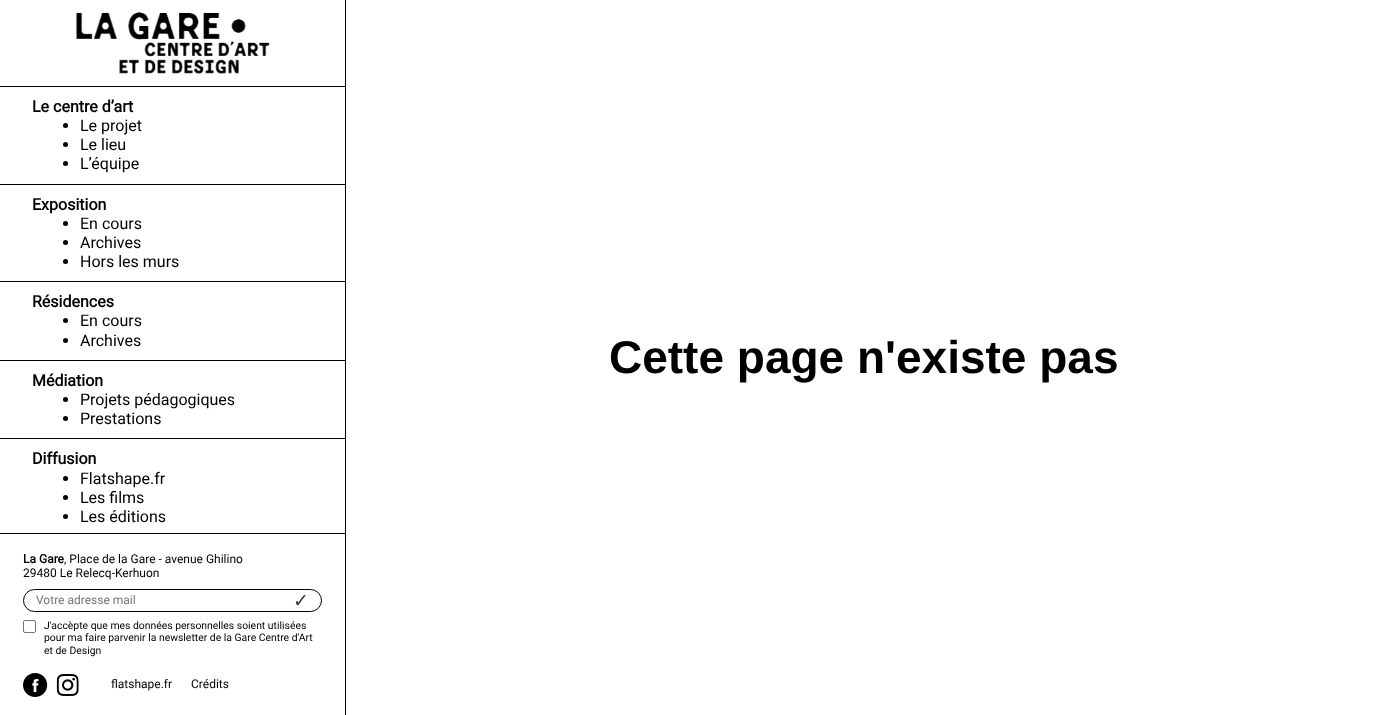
<svg xmlns="http://www.w3.org/2000/svg" width="1382" height="715">
<style>
.a{font:bold 16px Roboto;fill:#000}
.b{font:16px Roboto;fill:#000}
.c{font:bold 12px Roboto;fill:#000}
.d{font:12px Roboto;fill:#000}
.e{font:12px Roboto;fill:#757575}
.f{font:19px DejaVu Sans;fill:#333}
.g{font:10.4px Roboto;fill:#000}
.h{font:bold 46px Liberation Sans;fill:#000}
</style>
<rect width="100%" height="100%" fill="#fff"/>
<path fill="#000" d="M345 0h1v533H345z"/>
<path fill="#000" d="M0 86h345v1H0z"/>
<image href="1.png" x="76" y="12" width="194" height="62"/>
<path fill="#000" d="M0 184h345v1H0z"/>
<circle fill="#000" cx="65.5" cy="125.5" r="2.5"/>
<circle fill="#000" cx="65.5" cy="144.5" r="2.5"/>
<circle fill="#000" cx="65.5" cy="163.5" r="2.5"/>
<path fill="#000" d="M0 281h345v1H0z"/>
<circle fill="#000" cx="65.5" cy="223.5" r="2.5"/>
<circle fill="#000" cx="65.5" cy="242.5" r="2.5"/>
<circle fill="#000" cx="65.5" cy="261.5" r="2.5"/>
<path fill="#000" d="M0 360h345v1H0z"/>
<circle fill="#000" cx="65.5" cy="320.5" r="2.5"/>
<circle fill="#000" cx="65.5" cy="340.5" r="2.5"/>
<path fill="#000" d="M0 438h345v1H0z"/>
<circle fill="#000" cx="65.5" cy="399.5" r="2.5"/>
<circle fill="#000" cx="65.5" cy="418.5" r="2.5"/>
<circle fill="#000" cx="65.5" cy="478.5" r="2.5"/>
<circle fill="#000" cx="65.5" cy="497.5" r="2.5"/>
<circle fill="#000" cx="65.5" cy="516.5" r="2.5"/>
<path fill="#000" d="M0 533h346v1H0z"/>
<path fill="#000" d="M345 533h1v182H345z"/>
<rect fill="none" stroke="#000" x="23.5" y="589.5" width="298" height="22" rx="11"/>
<rect fill="none" stroke="#767676" x="23.5" y="620.5" width="12" height="12" rx="1.5"/>
<image href="2.png" x="23" y="673" width="25" height="24"/>
<image href="3.png" x="56" y="674" width="23" height="22"/>
<text class="a" x="32" y="112">Le centre d’art</text>
<text class="b" x="80" y="131">Le projet</text>
<text class="b" x="80" y="150">Le lieu</text>
<text class="b" x="80" y="169">L’équipe</text>
<text class="a" x="32" y="210">Exposition</text>
<text class="b" x="80" y="229">En cours</text>
<text class="b" x="80" y="248">Archives</text>
<text class="b" x="80" y="267">Hors les murs</text>
<text class="a" x="32" y="307">Résidences</text>
<text class="b" x="80" y="326">En cours</text>
<text class="b" x="80" y="346">Archives</text>
<text class="a" x="32" y="386">Médiation</text>
<text class="b" x="80" y="405">Projets pédagogiques</text>
<text class="b" x="80" y="424">Prestations</text>
<text class="a" x="32" y="464">Diffusion</text>
<text class="b" x="80" y="484">Flatshape.fr</text>
<text class="b" x="80" y="503">Les films</text>
<text class="b" x="80" y="522">Les éditions</text>
<text class="c" x="23" y="563">La Gare</text>
<text class="d" x="64" y="563">, Place de la Gare - avenue Ghilino</text>
<text class="d" x="23" y="577">29480 Le Relecq-Kerhuon</text>
<text class="e" x="36" y="604">Votre adresse mail</text>
<text class="f" x="293" y="607">✓</text>
<text class="g" x="44" y="629">J'accèpte que mes données personnelles soient utilisées</text>
<text class="g" x="44" y="641">pour ma faire parvenir la newsletter de la Gare Centre d'Art</text>
<text class="g" x="44" y="654">et de Design</text>
<text class="d" x="111" y="688">flatshape.fr</text>
<text class="d" x="191" y="688">Crédits</text>
<text class="h" x="609" y="373">Cette page n'existe pas</text>
</svg>
